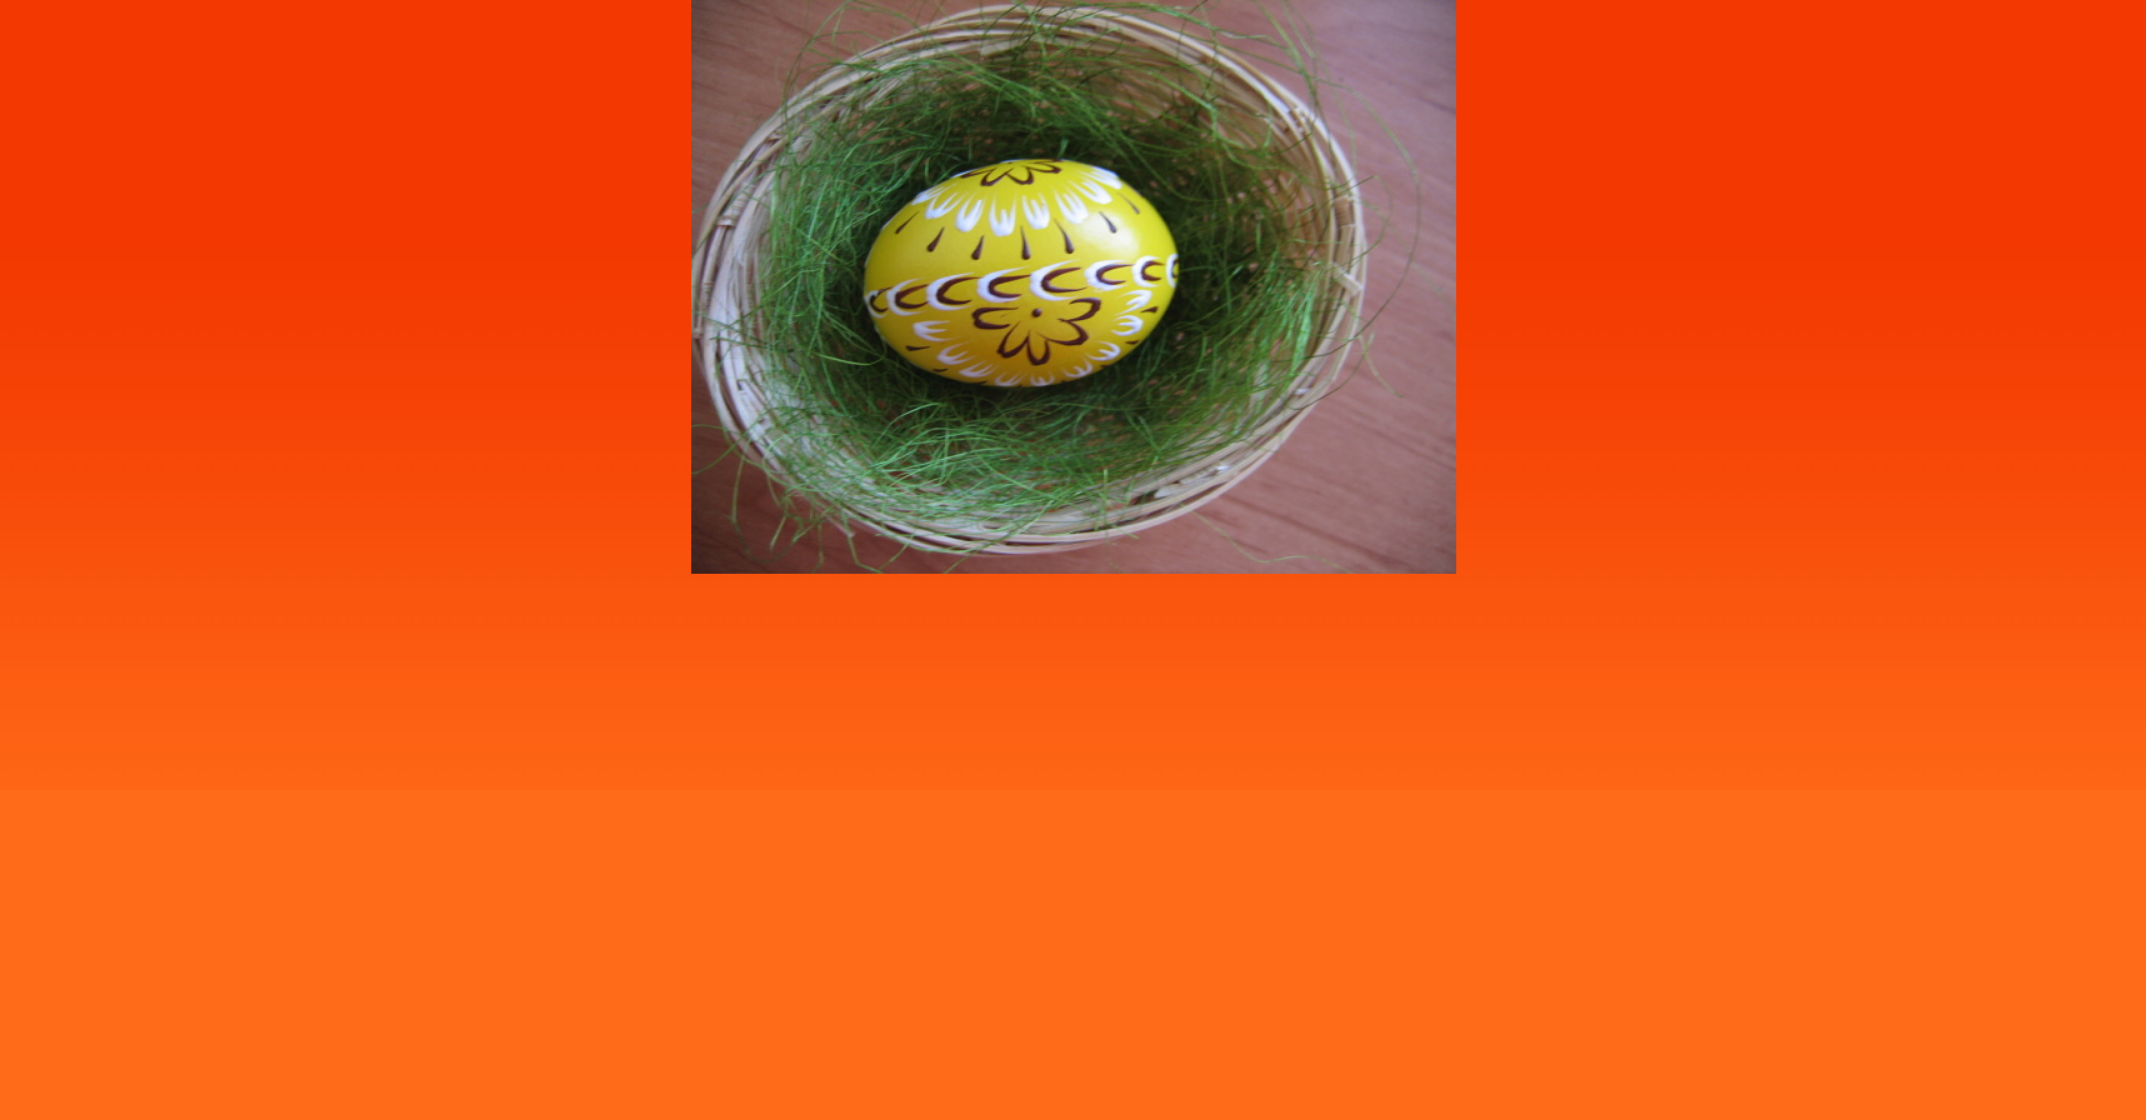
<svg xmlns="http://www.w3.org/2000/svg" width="2146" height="1120">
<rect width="100%" height="100%" fill="#ff6b19"/>
<image href="1.png" x="0" y="574" width="2146" height="216"/>
<image href="2.png" x="0" y="0" width="2146" height="574"/>
<image href="3.png" x="691" y="0" width="766" height="574"/>
</svg>
